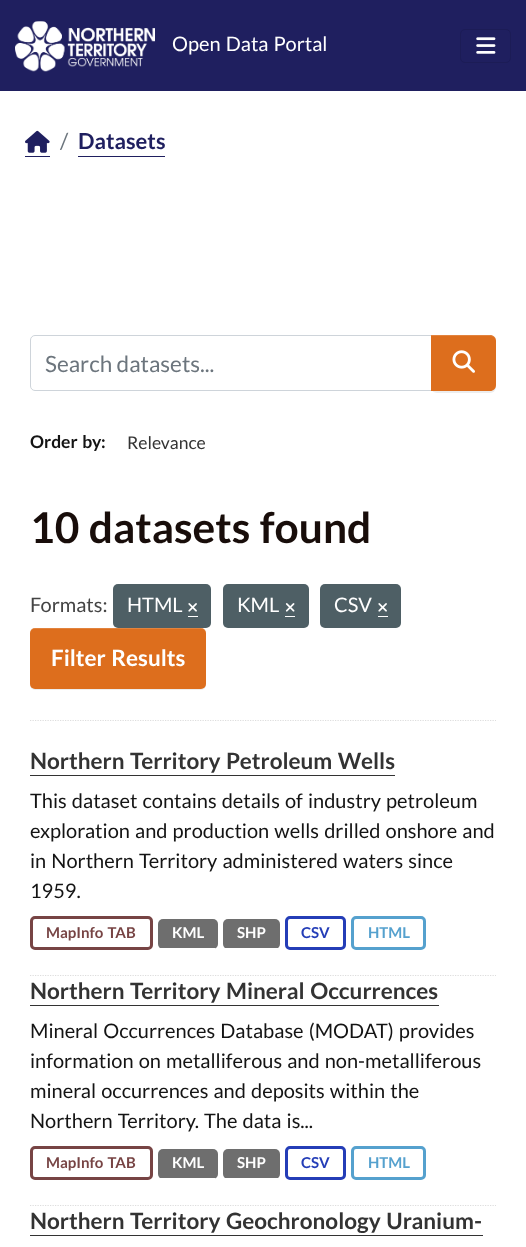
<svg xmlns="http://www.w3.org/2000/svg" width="526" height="1247">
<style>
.a{font:20px Lato;fill:#fff}
.b{font:22px Lato;fill:#6c757d}
.c{font:bold 22px Lato;fill:#1f1f5f}
.d{font:22.5px Lato;fill:#6c757d}
.e{font:bold 17.5px Lato;fill:#141414}
.f{font:17.5px Lato;fill:#333}
.g{font:bold 42.5px Lato;fill:#180d0a}
.h{font:20px Lato;fill:#444}
.i{font:bold 22.5px Lato;fill:#fff}
.j{font:bold 22.5px Lato;fill:#333}
.k{font:20px Lato;fill:#141414}
.l{font:bold 15px Lato;fill:#744}
.m{font:bold 15px Lato;fill:#fff}
.n{font:bold 15px Lato;fill:#243db7}
.o{font:bold 15px Lato;fill:#55a1ce}
</style>
<rect width="100%" height="100%" fill="#fff"/>
<path fill="#1f1f5f" d="M0 0h526v91H0z"/>
<image href="1.png" x="15" y="21" width="140" height="51"/>
<rect fill="none" stroke="#1c1c56" x="460.5" y="29.5" width="50" height="33" rx="4.5"/>
<image href="2.png" x="476" y="37" width="20" height="17"/>
<path fill="#1f1f5f" d="M25 156h25v1H25z"/>
<image href="3.png" x="25" y="130" width="25" height="23"/>
<path fill="#1f1f5f" d="M78 156h87v1H78z"/>
<path fill="none" stroke="#ddd" stroke-width="1.2" stroke-dasharray="1.25 1.25" d="M30 720.5h466"/>
<path fill="none" stroke="#ced4da" d="M35 335.5h397.5v55h-397.5c-2.5 0-4.5-2-4.5-4.5v-46c0-2.5 2-4.5 4.5-4.5z"/>
<rect fill="#00000012" filter="blur(0.5px)" x="431" y="336" width="65" height="57" rx="6"/>
<path fill="#dd6e1d" d="M431 335h59c3.5 0 6 2.5 6 6v44c0 3.5-2.5 6-6 6h-59z"/>
<path fill="#ffffff26" d="M431 336h59c4 0 6 3 6 6v-1c0-3-3-6-6-6h-59z"/>
<image href="4.png" x="452" y="350" width="23" height="23"/>
<rect fill="#4e5f65" x="113" y="584" width="98" height="44" rx="5"/>
<path fill="#fff" d="M188 616h10v1H188z"/>
<image href="5.png" x="188" y="603" width="9" height="9"/>
<rect fill="#4e5f65" x="223" y="584" width="86" height="44" rx="5"/>
<path fill="#fff" d="M285 616h10v1H285z"/>
<image href="6.png" x="285" y="603" width="10" height="9"/>
<rect fill="#4e5f65" x="320" y="584" width="81" height="44" rx="5"/>
<path fill="#fff" d="M378 616h10v1H378z"/>
<image href="5.png" x="378" y="603" width="9" height="9"/>
<rect fill="#00000012" filter="blur(0.5px)" x="30" y="629" width="176" height="61" rx="5"/>
<rect fill="#dd6e1d" x="30" y="628" width="176" height="61" rx="5"/>
<path fill="#ffffff26" d="M35 629h166c3 0 5 2 5 5c0-3-1-5-4-6h-167c-3 0-5 3-5 6c0-3 2-5 5-5z"/>
<path fill="none" stroke="#ddd" stroke-width="1.2" stroke-dasharray="1.25 1.25" d="M30 975.5h466"/>
<path fill="#333" d="M30 775h365v1H30z"/>
<rect fill="none" stroke="#744" stroke-width="3" x="31.5" y="917.5" width="120" height="31" rx="3.5"/>
<rect fill="#6e6e6e" x="158" y="919" width="60" height="30" rx="5"/>
<path fill="#fff" d="M160 948h55v1H160z"/>
<rect fill="#6e6e6e" x="223" y="919" width="57" height="30" rx="5"/>
<path fill="#fff" d="M225 948h53v1H225z"/>
<rect fill="none" stroke="#243db7" stroke-width="3" x="286.5" y="917.5" width="58" height="31" rx="3.5"/>
<rect fill="none" stroke="#55a1ce" stroke-width="3" x="352.5" y="917.5" width="72" height="31" rx="3.5"/>
<path fill="none" stroke="#ddd" stroke-width="1.2" stroke-dasharray="1.25 1.25" d="M30 1205.5h466"/>
<path fill="#333" d="M30 1005h409v1H30z"/>
<rect fill="none" stroke="#744" stroke-width="3" x="31.5" y="1147.5" width="120" height="31" rx="3.5"/>
<rect fill="#6e6e6e" x="158" y="1149" width="60" height="30" rx="5"/>
<path fill="#fff" d="M160 1178h55v1H160z"/>
<rect fill="#6e6e6e" x="223" y="1149" width="57" height="30" rx="5"/>
<path fill="#fff" d="M225 1178h53v1H225z"/>
<rect fill="none" stroke="#243db7" stroke-width="3" x="286.5" y="1147.5" width="58" height="31" rx="3.5"/>
<rect fill="none" stroke="#55a1ce" stroke-width="3" x="352.5" y="1147.5" width="72" height="31" rx="3.5"/>
<path fill="#333" d="M30 1235h453v1H30z"/>
<text class="a" x="172" y="51" word-spacing="1.25">Open Data Portal</text>
<text class="b" x="60" y="149">/</text>
<text class="c" x="78" y="149">Datasets</text>
<text class="d" x="45" y="372">Search datasets...</text>
<text class="e" x="30" y="448" word-spacing="1.25">Order by</text>
<text class="e" x="101" y="448">:</text>
<text class="f" x="127" y="449">Relevance</text>
<text class="g" x="30" y="543" word-spacing="1.25">10 datasets found</text>
<text class="h" x="30" y="612">Formats:</text>
<text class="a" x="127" y="612">HTML</text>
<text class="a" x="237" y="612">KML</text>
<text class="a" x="334" y="612">CSV</text>
<text class="i" x="51" y="666" word-spacing="1.25">Filter Results</text>
<text class="j" x="30" y="769" word-spacing="1.25">Northern Territory Petroleum Wells</text>
<text class="k" x="30" y="808" word-spacing="1.25">This dataset contains details of industry petroleum</text>
<text class="k" x="30" y="838" word-spacing="1.25">exploration and production wells drilled onshore and</text>
<text class="k" x="30" y="868" word-spacing="1.25">in Northern Territory administered waters since</text>
<text class="k" x="30" y="898">1959.</text>
<text class="l" x="46" y="938" word-spacing="1.25">MapInfo TAB</text>
<text class="m" x="172" y="938">KML</text>
<text class="m" x="237" y="938">SHP</text>
<text class="n" x="301" y="938">CSV</text>
<text class="o" x="368" y="938">HTML</text>
<text class="j" x="30" y="999" word-spacing="1.25">Northern Territory Mineral Occurrences</text>
<text class="k" x="30" y="1038" word-spacing="1.25">Mineral Occurrences Database (MODAT) provides</text>
<text class="k" x="30" y="1068" word-spacing="1.25">information on metalliferous and non-metalliferous</text>
<text class="k" x="30" y="1098" word-spacing="1.25">mineral occurrences and deposits within the</text>
<text class="k" x="30" y="1128" word-spacing="1.25">Northern Territory. The data is...</text>
<text class="l" x="46" y="1168" word-spacing="1.25">MapInfo TAB</text>
<text class="m" x="172" y="1168">KML</text>
<text class="m" x="237" y="1168">SHP</text>
<text class="n" x="301" y="1168">CSV</text>
<text class="o" x="368" y="1168">HTML</text>
<text class="j" x="30" y="1229" word-spacing="1.25">Northern Territory Geochronology Uranium-</text>
</svg>
